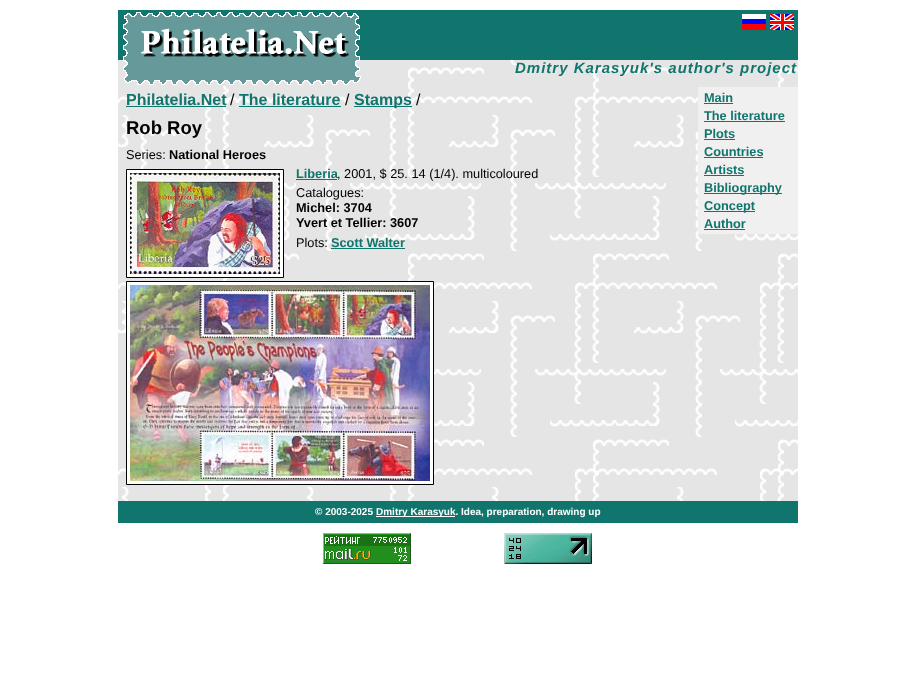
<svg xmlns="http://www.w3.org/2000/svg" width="915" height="697">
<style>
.a{font:italic bold 15px Liberation Sans;letter-spacing:1px;fill:#10756c}
.b{font:bold 16px Liberation Sans;fill:#10756c}
.c{font:16px Liberation Sans;fill:#000}
.d{font:bold 12.75px Liberation Sans;fill:#10756c}
.e{font:bold 18.5px Liberation Sans;fill:#000}
.f{font:12.75px Liberation Sans;fill:#000}
.g{font:bold 12.75px Liberation Sans;fill:#000}
.h{font:bold 10px Liberation Sans;fill:#fff}
</style>
<rect width="100%" height="100%" fill="#fff"/>
<image href="1.png" x="118" y="60" width="680" height="441"/>
<path fill="#10756c" d="M118 10h680v50H118z"/>
<path fill="#e5e5e5" d="M140 60h192v26H140z"/>
<image href="2.png" x="123" y="12" width="238" height="73"/>
<image href="3.png" x="742" y="14" width="24" height="16"/>
<image href="4.png" x="770" y="14" width="24" height="16"/>
<path fill="#10756c" d="M126 106h100v1H126z"/>
<path fill="#10756c" d="M239 106h102v1H239z"/>
<path fill="#10756c" d="M354 106h58v1H354z"/>
<path fill="#f0f0f0" d="M698 87h100v147H698z"/>
<path fill="#10756c" d="M704 103h29v1H704z"/>
<path fill="#10756c" d="M704 121h81v1H704z"/>
<path fill="#10756c" d="M704 139h31v1H704z"/>
<path fill="#10756c" d="M704 157h59v1H704z"/>
<path fill="#10756c" d="M704 175h40v1H704z"/>
<path fill="#10756c" d="M704 193h78v1H704z"/>
<path fill="#10756c" d="M704 211h51v1H704z"/>
<path fill="#10756c" d="M704 229h41v1H704z"/>
<path fill="#fff" stroke="#000" d="M126.5 169.5h157v108H126.5z"/>
<image href="5.png" x="130" y="173" width="150" height="101"/>
<path fill="#10756c" d="M296 179h41v1H296z"/>
<path fill="#10756c" d="M331 248h74v1H331z"/>
<path fill="#fff" stroke="#000" d="M126.5 281.5h307v203H126.5z"/>
<image href="6.png" x="130" y="285" width="300" height="196"/>
<path fill="#10756c" d="M118 501h680v22H118z"/>
<path fill="#fff" d="M376 516h79v1H376z"/>
<image href="7.png" x="323" y="533" width="88" height="31"/>
<image href="8.png" x="504" y="533" width="88" height="31"/>
<text class="a" x="515" y="73">Dmitry Karasyuk's author's project</text>
<text class="b" x="126" y="105">Philatelia.Net</text>
<text class="c" x="230" y="105">/</text>
<text class="b" x="239" y="105">The literature</text>
<text class="c" x="345" y="105">/</text>
<text class="b" x="354" y="105">Stamps</text>
<text class="c" x="416" y="105">/</text>
<text class="d" x="704" y="102">Main</text>
<text class="d" x="704" y="120">The literature</text>
<text class="d" x="704" y="138">Plots</text>
<text class="d" x="704" y="156">Countries</text>
<text class="d" x="704" y="174">Artists</text>
<text class="d" x="704" y="192">Bibliography</text>
<text class="d" x="704" y="210">Concept</text>
<text class="d" x="704" y="228">Author</text>
<text class="e" x="126" y="134">Rob Roy</text>
<text class="f" x="126" y="159">Series:</text>
<text class="g" x="169" y="159">National Heroes</text>
<text class="d" x="296" y="178">Liberia</text>
<text class="f" x="337" y="178">, 2001, $ 25. 14 (1/4). multicoloured</text>
<text class="f" x="296" y="197">Catalogues:</text>
<text class="g" x="296" y="212">Michel: 3704</text>
<text class="g" x="296" y="227">Yvert et Tellier: 3607</text>
<text class="f" x="296" y="247">Plots:</text>
<text class="d" x="331" y="247">Scott Walter</text>
<text class="h" x="315" y="515">© 2003-2025</text>
<text class="h" x="376" y="515">Dmitry Karasyuk. Idea, preparation, drawing up</text>
</svg>
